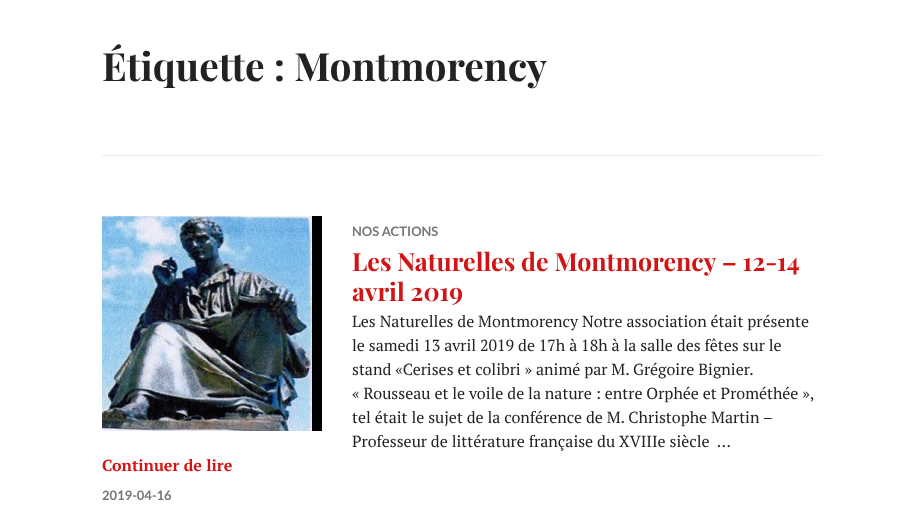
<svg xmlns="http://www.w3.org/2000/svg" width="923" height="506">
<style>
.a{font:bold 39px Playfair Display;fill:#222}
.b{font:bold 13px Lato;fill:#777}
.c{font:bold 25px Playfair Display;fill:#d11415}
.d{font:16px PT Serif;fill:#222}
.e{font:bold 16px PT Serif;fill:#d11415}
</style>
<rect width="100%" height="100%" fill="#fff"/>
<path fill="#eee" d="M102 155h720v1H102z"/>
<path fill="#000" d="M312 216h10v215H312z"/>
<image href="1.png" x="102" y="216" width="210" height="215"/>
<text class="a" x="102" y="81">Étiquette : Montmorency</text>
<text class="b" x="352" y="236">NOS ACTIONS</text>
<text class="c" x="352" y="271">Les Naturelles de Montmorency – 12-14</text>
<text class="c" x="352" y="301">avril 2019</text>
<text class="d" x="352" y="327">Les Naturelles de Montmorency Notre association était présente</text>
<text class="d" x="352" y="351">le samedi 13 avril 2019 de 17h à 18h à la salle des fêtes sur le</text>
<text class="d" x="352" y="375">stand «Cerises et colibri » animé par M. Grégoire Bignier.</text>
<text class="d" x="352" y="399">« Rousseau et le voile de la nature : entre Orphée et Prométhée »,</text>
<text class="d" x="352" y="423">tel était le sujet de la conférence de M. Christophe Martin –</text>
<text class="d" xml:space="preserve" x="352" y="447">Professeur de littérature française du XVIIIe siècle  …</text>
<text class="e" x="102" y="471">Continuer de lire</text>
<text class="b" x="102" y="500">2019-04-16</text>
</svg>
